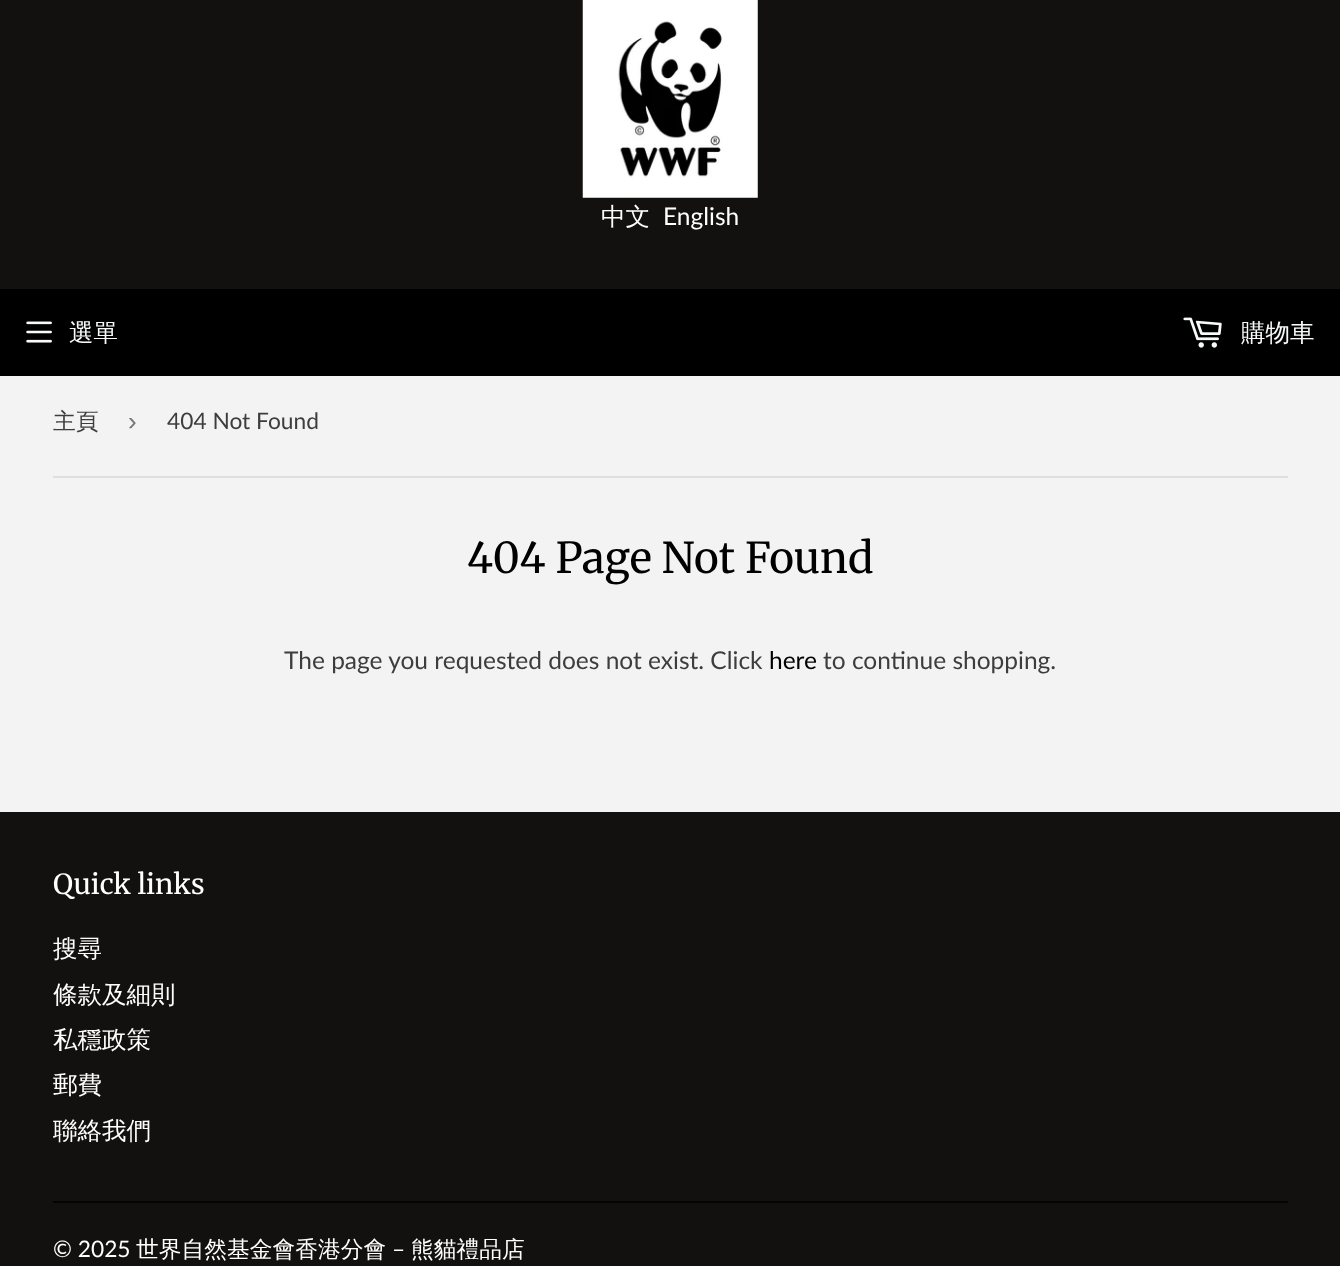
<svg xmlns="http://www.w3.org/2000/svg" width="1340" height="1266">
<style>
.a{font:500 24.5px WenQuanYi Zen Hei;fill:#fff}
.b{font:24.5px Lato;fill:#fff}
.c{font:500 24.5px WenQuanYi Zen Hei;fill:#f7faf8}
.d{font:500 22.75px WenQuanYi Zen Hei;fill:#3d3d3d}
.e{font:26px Liberation Sans;fill:#767676}
.f{font:22.75px Lato;fill:#3d3d3d}
.g{font:42.5px 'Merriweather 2';fill:#000}
.h{font:24.5px Lato;fill:#3d3d3d}
.i{font:24.5px Lato;fill:#000}
.j{font:27.75px Merriweather;fill:#fff}
.k{font:22.75px Lato;fill:#fff}
.l{font:500 22.75px WenQuanYi Zen Hei;fill:#fff}
</style>
<rect width="100%" height="100%" fill="#f3f3f3"/>
<path fill="#12110f" d="M0 0h1340v289H0z"/>
<image href="1.png" x="582" y="0" width="176" height="198"/>
<path fill="#000" d="M0 289h1340v87H0z"/>
<image href="2.png" x="26" y="321" width="26" height="22"/>
<image href="3.png" x="1183" y="317" width="39" height="31"/>
<path fill="#dedede" d="M53 476h1235v2H53z"/>
<path fill="#12110f" d="M0 812h1340v454H0z"/>
<path fill="#040403" d="M53 1201h1235v2H53z"/>
<text class="a" x="601" y="225">中文</text>
<text class="b" x="663" y="225">English</text>
<text class="c" x="69" y="341">選單</text>
<text class="c" x="1241" y="341">購物車</text>
<text class="d" x="53" y="429">主頁</text>
<text class="e" x="128" y="430">›</text>
<text class="f" x="167" y="429">404 Not Found</text>
<text class="g" x="467" y="573">404 Page Not Found</text>
<text class="h" x="284" y="669">The page you requested does not exist. Click</text>
<text class="i" x="769" y="669">here</text>
<text class="h" x="823" y="669">to continue shopping.</text>
<text class="j" x="53" y="894">Quick links</text>
<text class="a" x="53" y="957">搜尋</text>
<text class="a" x="53" y="1003">條款及細則</text>
<text class="a" x="53" y="1048">私穩政策</text>
<text class="a" x="53" y="1093">郵費</text>
<text class="a" x="53" y="1139">聯絡我們</text>
<text class="k" x="53" y="1257">© 2025</text>
<text class="l" x="136" y="1257">世界自然基金會香港分會</text>
<text class="k" x="392" y="1257">–</text>
<text class="l" x="411" y="1257">熊貓禮品店</text>
</svg>
